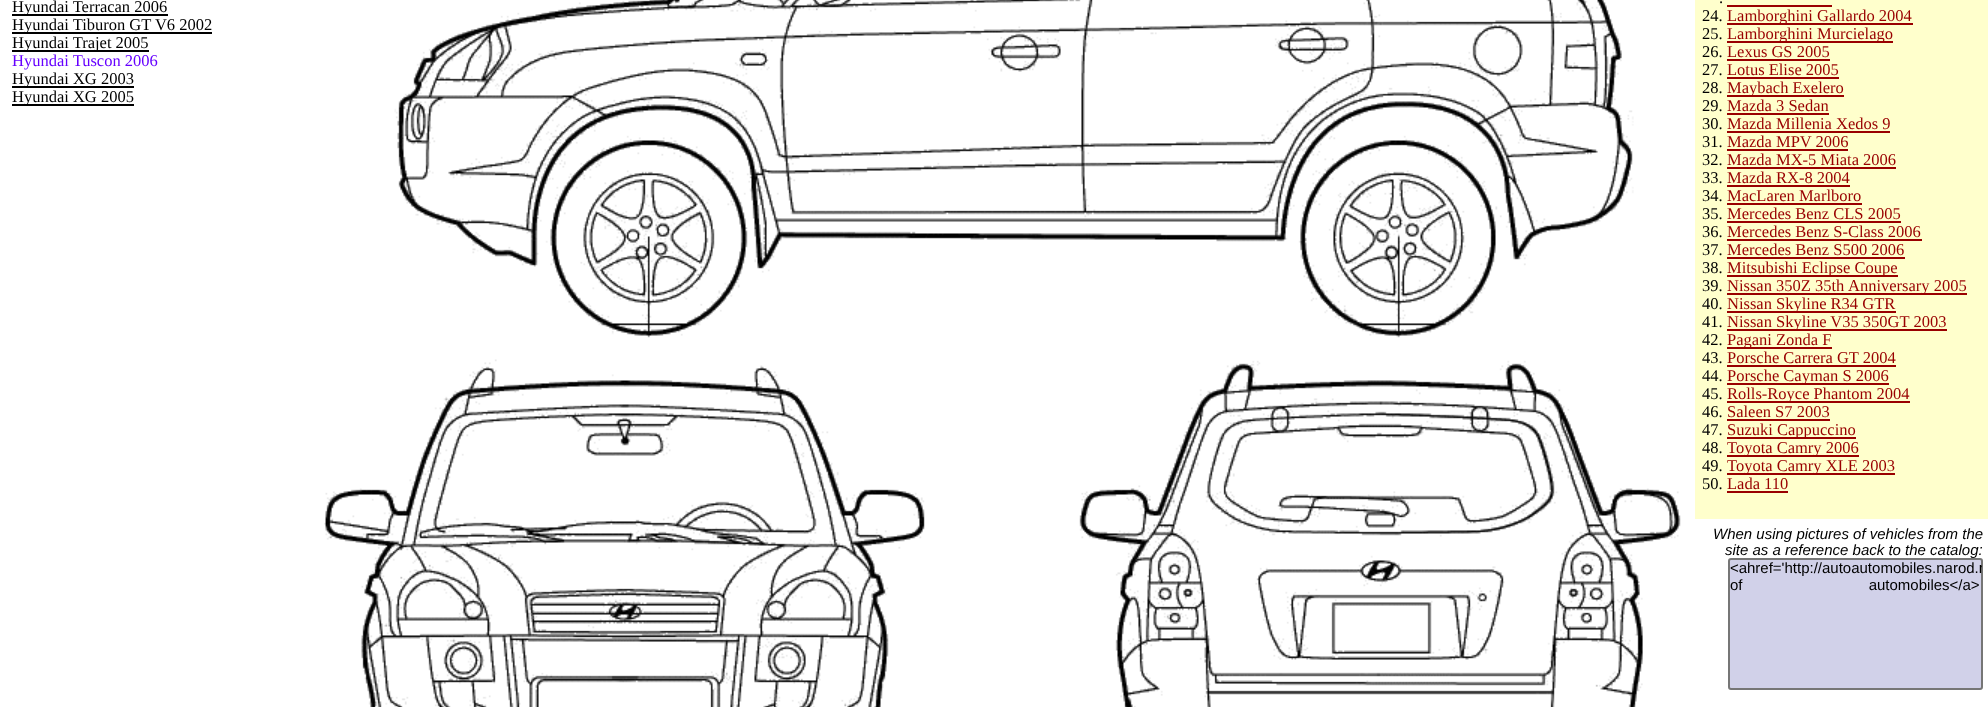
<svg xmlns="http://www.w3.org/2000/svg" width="1988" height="707">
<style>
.a{font:16.5px Liberation Serif;fill:#000}
.b{font:16.5px Liberation Serif;fill:#60f}
.c{font:16.5px Liberation Serif;fill:#900}
.d{font:italic 15px Liberation Sans;fill:#000}
.e{font:15px Liberation Sans;fill:#000}
</style>
<defs>
<clipPath id="clip1"><path d="M1730 560h252v129H1730z"/></clipPath>
</defs>
<rect width="100%" height="100%" fill="#fff"/>
<path fill="#000" d="M12 14h156v2H12z"/>
<path fill="#000" d="M12 32h200v2H12z"/>
<path fill="#000" d="M12 50h137v2H12z"/>
<path fill="#000" d="M12 86h122v2H12z"/>
<path fill="#000" d="M12 104h122v2H12z"/>
<image href="1.png" x="324" y="0" width="1357" height="707"/>
<path fill="#ffc" d="M1695 0h293v519H1695z"/>
<path fill="#900" d="M1727 5h105v2H1727z"/>
<path fill="#900" d="M1727 23h186v2H1727z"/>
<path fill="#900" d="M1727 41h166v2H1727z"/>
<path fill="#900" d="M1727 59h103v2H1727z"/>
<path fill="#900" d="M1727 77h112v2H1727z"/>
<path fill="#900" d="M1727 95h117v2H1727z"/>
<path fill="#900" d="M1727 113h102v2H1727z"/>
<path fill="#900" d="M1727 131h163v2H1727z"/>
<path fill="#900" d="M1727 149h121v2H1727z"/>
<path fill="#900" d="M1727 167h169v2H1727z"/>
<path fill="#900" d="M1727 185h123v2H1727z"/>
<path fill="#900" d="M1727 203h135v2H1727z"/>
<path fill="#900" d="M1727 221h174v2H1727z"/>
<path fill="#900" d="M1727 239h195v2H1727z"/>
<path fill="#900" d="M1727 257h178v2H1727z"/>
<path fill="#900" d="M1727 275h171v2H1727z"/>
<path fill="#900" d="M1727 293h240v2H1727z"/>
<path fill="#900" d="M1727 311h169v2H1727z"/>
<path fill="#900" d="M1727 329h220v2H1727z"/>
<path fill="#900" d="M1727 347h105v2H1727z"/>
<path fill="#900" d="M1727 365h169v2H1727z"/>
<path fill="#900" d="M1727 383h162v2H1727z"/>
<path fill="#900" d="M1727 401h183v2H1727z"/>
<path fill="#900" d="M1727 419h103v2H1727z"/>
<path fill="#900" d="M1727 437h129v2H1727z"/>
<path fill="#900" d="M1727 455h132v2H1727z"/>
<path fill="#900" d="M1727 473h168v2H1727z"/>
<path fill="#900" d="M1727 491h61v2H1727z"/>
<text class="a" x="12" y="12">Hyundai Terracan 2006</text>
<text class="a" x="12" y="30">Hyundai Tiburon GT V6 2002</text>
<text class="a" x="12" y="48">Hyundai Trajet 2005</text>
<text class="b" x="12" y="66">Hyundai Tuscon 2006</text>
<text class="a" x="12" y="84">Hyundai XG 2003</text>
<text class="a" x="12" y="102">Hyundai XG 2005</text>
<text class="a" x="1719" y="3">.</text>
<text class="a" x="1702" y="21">24.</text>
<text class="c" x="1727" y="21">Lamborghini Gallardo 2004</text>
<text class="a" x="1702" y="39">25.</text>
<text class="c" x="1727" y="39">Lamborghini Murcielago</text>
<text class="a" x="1702" y="57">26.</text>
<text class="c" x="1727" y="57">Lexus GS 2005</text>
<text class="a" x="1702" y="75">27.</text>
<text class="c" x="1727" y="75">Lotus Elise 2005</text>
<text class="a" x="1702" y="93">28.</text>
<text class="c" x="1727" y="93">Maybach Exelero</text>
<text class="a" x="1702" y="111">29.</text>
<text class="c" x="1727" y="111">Mazda 3 Sedan</text>
<text class="a" x="1702" y="129">30.</text>
<text class="c" x="1727" y="129">Mazda Millenia Xedos 9</text>
<text class="a" x="1702" y="147">31.</text>
<text class="c" x="1727" y="147">Mazda MPV 2006</text>
<text class="a" x="1702" y="165">32.</text>
<text class="c" x="1727" y="165">Mazda MX-5 Miata 2006</text>
<text class="a" x="1702" y="183">33.</text>
<text class="c" x="1727" y="183">Mazda RX-8 2004</text>
<text class="a" x="1702" y="201">34.</text>
<text class="c" x="1727" y="201">MacLaren Marlboro</text>
<text class="a" x="1702" y="219">35.</text>
<text class="c" x="1727" y="219">Mercedes Benz CLS 2005</text>
<text class="a" x="1702" y="237">36.</text>
<text class="c" x="1727" y="237">Mercedes Benz S-Class 2006</text>
<text class="a" x="1702" y="255">37.</text>
<text class="c" x="1727" y="255">Mercedes Benz S500 2006</text>
<text class="a" x="1702" y="273">38.</text>
<text class="c" x="1727" y="273">Mitsubishi Eclipse Coupe</text>
<text class="a" x="1702" y="291">39.</text>
<text class="c" x="1727" y="291">Nissan 350Z 35th</text>
<text class="c" x="1848" y="291">Anniversary 2005</text>
<text class="a" x="1702" y="309">40.</text>
<text class="c" x="1727" y="309">Nissan Skyline R34 GTR</text>
<text class="a" x="1702" y="327">41.</text>
<text class="c" x="1727" y="327">Nissan Skyline V35 350GT 2003</text>
<text class="a" x="1702" y="345">42.</text>
<text class="c" x="1727" y="345">Pagani Zonda F</text>
<text class="a" x="1702" y="363">43.</text>
<text class="c" x="1727" y="363">Porsche Carrera GT 2004</text>
<text class="a" x="1702" y="381">44.</text>
<text class="c" x="1727" y="381">Porsche Cayman S 2006</text>
<text class="a" x="1702" y="399">45.</text>
<text class="c" x="1727" y="399">Rolls-Royce Phantom 2004</text>
<text class="a" x="1702" y="417">46.</text>
<text class="c" x="1727" y="417">Saleen S7 2003</text>
<text class="a" x="1702" y="435">47.</text>
<text class="c" x="1727" y="435">Suzuki Cappuccino</text>
<text class="a" x="1702" y="453">48.</text>
<text class="c" x="1727" y="453">Toyota Camry 2006</text>
<text class="a" x="1702" y="471">49.</text>
<text class="c" x="1727" y="471">Toyota Camry XLE 2003</text>
<text class="a" x="1702" y="489">50.</text>
<text class="c" x="1727" y="489">Lada 110</text>
<text class="d" x="1713" y="539">When using pictures of vehicles from the</text>
<text class="d" x="1725" y="555">site as a reference back to the catalog:</text>
<rect fill="#d1d1e9" stroke="#767676" stroke-width="2" x="1729" y="559" width="253" height="130" rx="2"/>
<text class="e" x="1730" y="573">&lt;a</text>
<g clip-path="url(#clip1)">
<text class="e" x="1747" y="573">href='http://autoautomobiles.narod.r</text>
</g>
<text class="e" x="1730" y="590" word-spacing="122">of automobiles&lt;/a&gt;</text>
</svg>
